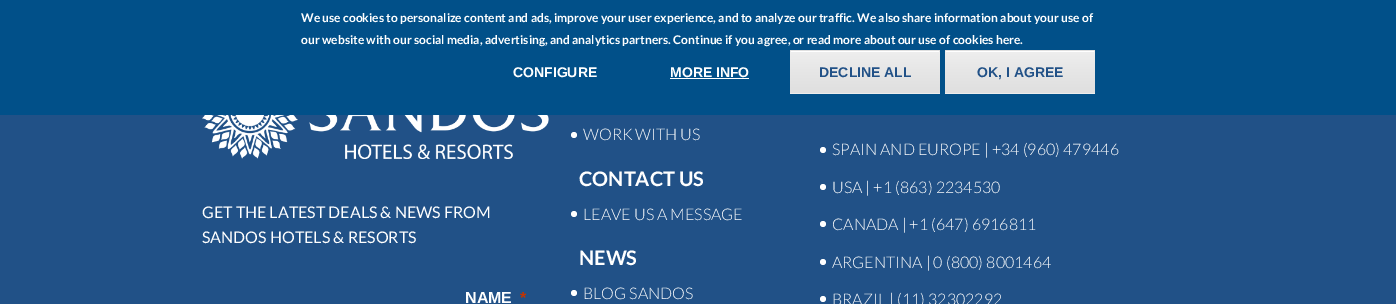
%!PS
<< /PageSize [1396 304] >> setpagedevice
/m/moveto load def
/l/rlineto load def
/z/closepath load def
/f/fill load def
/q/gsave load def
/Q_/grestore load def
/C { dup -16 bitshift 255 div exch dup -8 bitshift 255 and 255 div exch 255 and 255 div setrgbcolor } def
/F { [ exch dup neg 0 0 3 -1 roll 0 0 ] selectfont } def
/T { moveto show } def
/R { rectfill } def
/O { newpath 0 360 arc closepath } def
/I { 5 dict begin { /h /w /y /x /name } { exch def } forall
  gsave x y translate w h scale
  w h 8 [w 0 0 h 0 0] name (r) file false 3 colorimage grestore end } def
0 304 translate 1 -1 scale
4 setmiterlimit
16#215187 C
0 0 1396 304 R
16#015089 C
0 0 1396 115 R
/Lato-Bold 12 F
16#FFFFFF C
(We use cookies to personalize content and ads, improve your user experience, and to analyze our traffic. We also share information about your use of) 301 22 T
(our website with our social media, advertising, and analytics partners. Continue if you agree, or read more about our use of cookies here.) 301 44 T
/LiberationSans-Bold 14 F
(CONFIGURE) 513 77 T
(MORE INFO) 670 77 T
670 78 79 1 R
q 790 50 m 150 0 l 0 1 l -150 0 l z clip newpath
<< /ShadingType 2 /ColorSpace /DeviceRGB /Coords [865 9 865 51] /Extend [true true] /Function << /FunctionType 3 /Domain [0 1] /Functions [<< /FunctionType 2 /Domain [0 1] /C0 [.929 .929 .929] /C1 [.929 .929 .929] /N 1 >> << /FunctionType 2 /Domain [0 1] /C0 [.929 .929 .929] /C1 [.875 .875 .875] /N 1 >>] /Bounds [.05] /Encode [0 1 0 1] >> >> shfill Q_
q 790 51 m 150 0 l 0 42 l -150 0 l z clip newpath
<< /ShadingType 2 /ColorSpace /DeviceRGB /Coords [865 51 865 93] /Extend [true true] /Function << /FunctionType 3 /Domain [0 1] /Functions [<< /FunctionType 2 /Domain [0 1] /C0 [.929 .929 .929] /C1 [.929 .929 .929] /N 1 >> << /FunctionType 2 /Domain [0 1] /C0 [.929 .929 .929] /C1 [.875 .875 .875] /N 1 >>] /Bounds [.05] /Encode [0 1 0 1] >> >> shfill Q_
q 790 93 m 150 0 l 0 1 l -150 0 l z clip newpath
<< /ShadingType 2 /ColorSpace /DeviceRGB /Coords [865 93 865 135] /Extend [true true] /Function << /FunctionType 3 /Domain [0 1] /Functions [<< /FunctionType 2 /Domain [0 1] /C0 [.929 .929 .929] /C1 [.929 .929 .929] /N 1 >> << /FunctionType 2 /Domain [0 1] /C0 [.929 .929 .929] /C1 [.875 .875 .875] /N 1 >>] /Bounds [.05] /Encode [0 1 0 1] >> >> shfill Q_
791 51 148 1 R
16#215187 C
(DECLINE ALL) 819 77 T
q 945 50 m 150 0 l 0 1 l -150 0 l z clip newpath
<< /ShadingType 2 /ColorSpace /DeviceRGB /Coords [1020 9 1020 51] /Extend [true true] /Function << /FunctionType 3 /Domain [0 1] /Functions [<< /FunctionType 2 /Domain [0 1] /C0 [.929 .929 .929] /C1 [.929 .929 .929] /N 1 >> << /FunctionType 2 /Domain [0 1] /C0 [.929 .929 .929] /C1 [.875 .875 .875] /N 1 >>] /Bounds [.05] /Encode [0 1 0 1] >> >> shfill Q_
q 945 51 m 150 0 l 0 42 l -150 0 l z clip newpath
<< /ShadingType 2 /ColorSpace /DeviceRGB /Coords [1020 51 1020 93] /Extend [true true] /Function << /FunctionType 3 /Domain [0 1] /Functions [<< /FunctionType 2 /Domain [0 1] /C0 [.929 .929 .929] /C1 [.929 .929 .929] /N 1 >> << /FunctionType 2 /Domain [0 1] /C0 [.929 .929 .929] /C1 [.875 .875 .875] /N 1 >>] /Bounds [.05] /Encode [0 1 0 1] >> >> shfill Q_
q 945 93 m 150 0 l 0 1 l -150 0 l z clip newpath
<< /ShadingType 2 /ColorSpace /DeviceRGB /Coords [1020 93 1020 135] /Extend [true true] /Function << /FunctionType 3 /Domain [0 1] /Functions [<< /FunctionType 2 /Domain [0 1] /C0 [.929 .929 .929] /C1 [.929 .929 .929] /N 1 >> << /FunctionType 2 /Domain [0 1] /C0 [.929 .929 .929] /C1 [.875 .875 .875] /N 1 >>] /Bounds [.05] /Encode [0 1 0 1] >> >> shfill Q_
16#FFFFFF C
946 51 148 1 R
16#215187 C
(OK, I AGREE) 977 77 T
(1.rgb) 202 115 347 44 I
/Lato-Regular 16 F
16#FFFFFF C
(GET THE LATEST DEALS & NEWS FROM) 202 218 T
(SANDOS HOTELS & RESORTS) 202 243 T
/LiberationSans-Bold 16 F
(NAME) 465 303 T
16#C33400 C
(*) 520 303 T
16#FFFFFF C
574 135 3 O f
/Lato-Light 16 F
(WORK WITH US) 583 140 T
/Lato-Bold 20 F
(CONTACT US) 579 186 T
574 214 3 O f
/Lato-Light 16 F
(LEAVE US A MESSAGE) 583 220 T
/Lato-Bold 20 F
(NEWS) 579 265 T
574 293 3 O f
/Lato-Light 16 F
(BLOG SANDOS) 583 299 T
823 150 3 O f
(SPAIN AND EUROPE | +34 \(960\) 479446) 832 155 T
823 187 3 O f
(USA | +1 \(863\) 2234530) 832 193 T
823 224 3 O f
(CANADA | +1 \(647\) 6916811) 832 230 T
823 262 3 O f
(ARGENTINA | 0 \(800\) 8001464) 832 268 T
823 299 3 O f
(BRAZIL | \(11\) 32302292) 832 305 T
showpage
